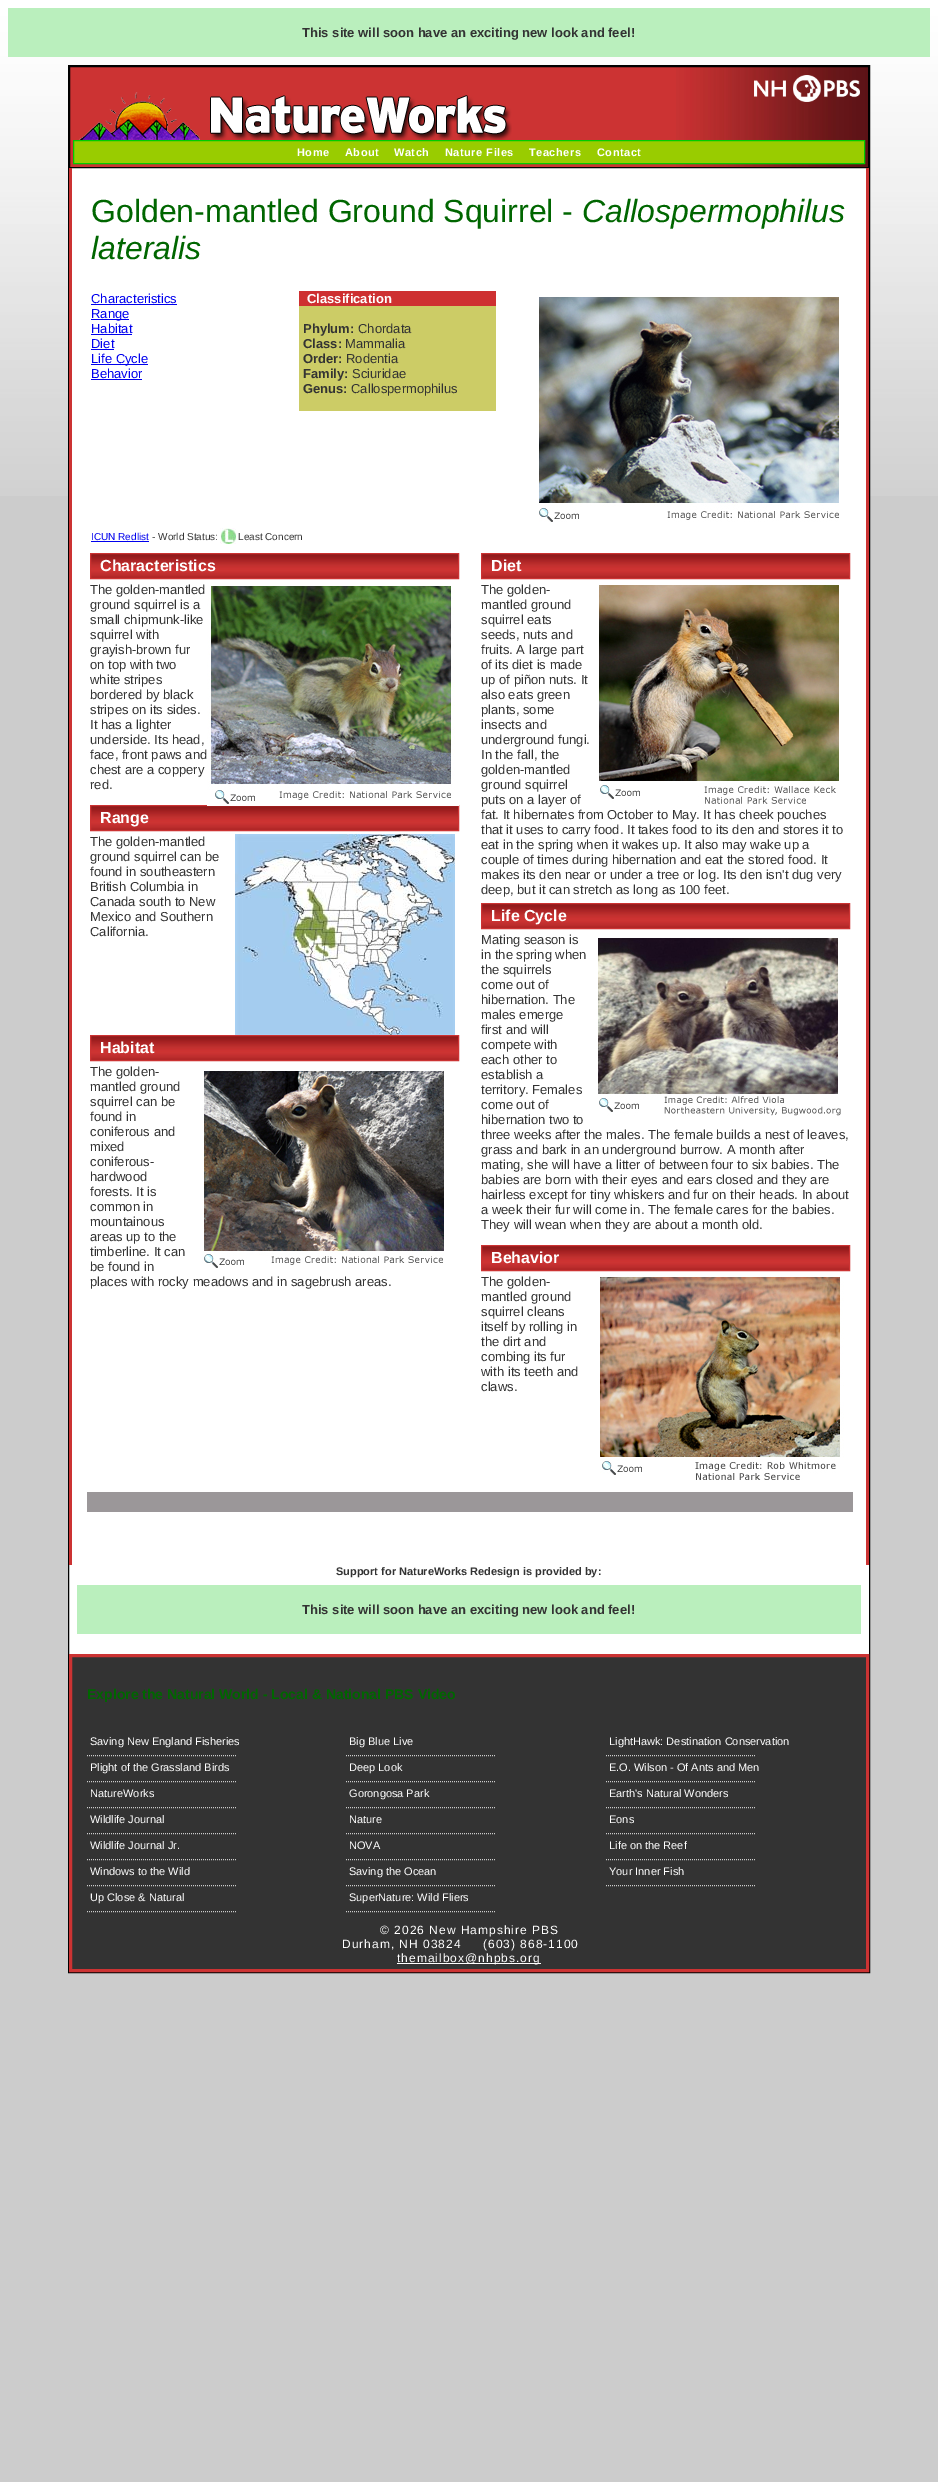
%!PS
<< /PageSize [938 2482] >> setpagedevice
/m/moveto load def
/l/rlineto load def
/z/closepath load def
/f/fill load def
/s/stroke load def
/q/gsave load def
/Q_/grestore load def
/w/setlinewidth load def
/C { dup -16 bitshift 255 div exch dup -8 bitshift 255 and 255 div exch 255 and 255 div setrgbcolor } def
/F { [ exch dup neg 0 0 3 -1 roll 0 0 ] selectfont } def
/T { moveto show } def
/R { rectfill } def
/I { 5 dict begin { /h /w /y /x /name } { exch def } forall
  gsave x y translate w h scale
  w h 8 [w 0 0 h 0 0] name (r) file false 3 colorimage grestore end } def
0 2482 translate 1 -1 scale
4 setmiterlimit
16#CCCCCC C
0 0 938 2482 R
(1.rgb) 0 0 938 496 I
16#BAEFBD C
8 8 922 49 R
/LiberationSans-Bold 13 F
16#333333 C
(This site will soon have an exciting new look and feel!) 302 37 T
16#FFFFFF C
69 168 800 1486 R
16#000000 C
68.5 65.5 801 1907 rectstroke
16#CC3333 C
70 67 606 100 R
(2.rgb) 676 67 192 100 I
16#000000 C
69.5 66.5 799 101 rectstroke
(3.rgb) 754 75 106 27 I
(4.rgb) 79 92 433 48 I
16#99CC00 C
73.5 140.5 m 791 0 l 0 23 l -791 0 l z q f Q_
16#00CC00 C
s
/LiberationSans-Bold 11 F
16#FFFFFF C
297 156 m .5 0 (Home) ashow
345 156 m .5 0 (About) ashow
394 156 m .5 0 (Watch) ashow
445 156 m .5 0 (Nature Files) ashow
529 156 m .5 0 (Teachers) ashow
597 156 m .5 0 (Contact) ashow
16#CC3333 C
866 168 3 1397 R
69 168 3 1397 R
/LiberationSans-Regular 32 F
16#006600 C
(Golden-mantled Ground Squirrel -) 91 222 T
/LiberationSans-Italic 32 F
(Callospermophilus) 582 222 T
(lateralis) 91 259 T
/LiberationSans-Regular 13 F
16#0000EE C
(Characteristics) 91 303 T
91 304 86 1 R
91 319 38 1 R
(Range) 91 318 T
(Habitat) 91 333 T
91 334 41 1 R
(Diet) 91 348 T
91 349 23 1 R
91 364 57 1 R
(Life Cycle) 91 363 T
(Behavior) 91 378 T
91 379 51 1 R
16#CE3031 C
299 291 197 15 R
/LiberationSans-Bold 13 F
16#FFFFFF C
(Classification) 307 303 T
16#CCCC66 C
299 306 197 105 R
16#333333 C
(Phylum:) 303 333 T
/LiberationSans-Regular 13 F
(Chordata) 358 333 T
/LiberationSans-Bold 13 F
(Class:) 303 348 T
/LiberationSans-Regular 13 F
(Mammalia) 345 348 T
/LiberationSans-Bold 13 F
(Order:) 303 363 T
/LiberationSans-Regular 13 F
(Rodentia) 346 363 T
/LiberationSans-Bold 13 F
(Family:) 303 378 T
/LiberationSans-Regular 13 F
(Sciuridae) 352 378 T
/LiberationSans-Bold 13 F
(Genus:) 303 393 T
/LiberationSans-Regular 13 F
(Callospermophilus) 351 393 T
(5.rgb) 539 297 300 225 I
/LiberationSans-Regular 10 F
16#0000EE C
(ICUN Redlist) 91 540 T
91 541 58 1 R
16#333333 C
(- World Status:) 152 540 T
(6.rgb) 220 528 16 16 I
(Least Concern) 238 540 T
(7.rgb) 91 554 367 24 I
16#CC3333 C
90.5 553.5 368 25 rectstroke
/LiberationSans-Bold 16 F
16#FFFFFF C
(Characteristics) 100 571 T
/LiberationSans-Regular 13 F
16#333333 C
(The golden-mantled) 90 594 T
(7.rgb) 91 806 367 24 I
16#CC3333 C
90.5 805.5 368 25 rectstroke
(8.rgb) 207 586 252 220 I
16#333333 C
(ground squirrel is a) 90 609 T
(small chipmunk-like) 90 624 T
(squirrel with) 90 639 T
(grayish-brown fur) 90 654 T
(on top with two) 90 669 T
(white stripes) 90 684 T
(bordered by black) 90 699 T
(stripes on its sides.) 90 714 T
(It has a lighter) 90 729 T
(underside. Its head,) 90 744 T
(face, front paws and) 90 759 T
(chest are a coppery) 90 774 T
(red.) 90 789 T
/LiberationSans-Bold 16 F
16#FFFFFF C
(Range) 100 823 T
/LiberationSans-Regular 13 F
16#333333 C
(The golden-mantled) 90 846 T
(9.rgb) 235 834 220 201 I
(ground squirrel can be) 90 861 T
(found in southeastern) 90 876 T
(British Columbia in) 90 891 T
(Canada south to New) 90 906 T
(Mexico and Southern) 90 921 T
(California.) 90 936 T
(7.rgb) 91 1036 367 24 I
16#CC3333 C
90.5 1035.5 368 25 rectstroke
/LiberationSans-Bold 16 F
16#FFFFFF C
(Habitat) 100 1053 T
/LiberationSans-Regular 13 F
16#333333 C
(The golden-) 90 1076 T
(10.rgb) 202 1071 242 197 I
(mantled ground) 90 1091 T
(squirrel can be) 90 1106 T
(found in) 90 1121 T
(coniferous and) 90 1136 T
(mixed) 90 1151 T
(coniferous-) 90 1166 T
(hardwood) 90 1181 T
(forests. It is) 90 1196 T
(common in) 90 1211 T
(mountainous) 90 1226 T
(areas up to the) 90 1241 T
(timberline. It can) 90 1256 T
(be found in) 90 1271 T
(places with rocky meadows and in sagebrush areas.) 90 1286 T
(7.rgb) 482 554 367 24 I
16#CC3333 C
481.5 553.5 368 25 rectstroke
/LiberationSans-Bold 16 F
16#FFFFFF C
(Diet) 491 571 T
/LiberationSans-Regular 13 F
16#333333 C
(The golden-) 481 594 T
(11.rgb) 599 585 240 219 I
(mantled ground) 481 609 T
(squirrel eats) 481 624 T
(seeds, nuts and) 481 639 T
(fruits. A large part) 481 654 T
(of its diet is made) 481 669 T
(up of piñon nuts. It) 481 684 T
(also eats green) 481 699 T
(plants, some) 481 714 T
(insects and) 481 729 T
(underground fungi.) 481 744 T
(In the fall, the) 481 759 T
(golden-mantled) 481 774 T
(ground squirrel) 481 789 T
(puts on a layer of) 481 804 T
(fat. It hibernates from October to May. It has cheek pouches) 481 819 T
(that it uses to carry food. It takes food to its den and stores it to) 481 834 T
(eat in the spring when it wakes up. It also may wake up a) 481 849 T
(couple of times during hibernation and eat the stored food. It) 481 864 T
(makes its den near or under a tree or log. Its den isn't dug very) 481 879 T
(deep, but it can stretch as long as 100 feet.) 481 894 T
(7.rgb) 482 904 367 24 I
16#CC3333 C
481.5 903.5 368 25 rectstroke
/LiberationSans-Bold 16 F
16#FFFFFF C
(Life Cycle) 491 921 T
/LiberationSans-Regular 13 F
16#333333 C
(Mating season is) 481 944 T
(12.rgb) 598 938 243 178 I
(in the spring when) 481 959 T
(the squirrels) 481 974 T
(come out of) 481 989 T
(hibernation. The) 481 1004 T
(males emerge) 481 1019 T
(first and will) 481 1034 T
(compete with) 481 1049 T
(each other to) 481 1064 T
(establish a) 481 1079 T
(territory. Females) 481 1094 T
(come out of) 481 1109 T
(hibernation two to) 481 1124 T
(three weeks after the males. The female builds a nest of leaves,) 481 1139 T
(grass and bark in an underground burrow. A month after) 481 1154 T
(mating, she will have a litter of between four to six babies. The) 481 1169 T
(babies are born with their eyes and ears closed and they are) 481 1184 T
(hairless except for tiny whiskers and fur on their heads. In about) 481 1199 T
(a week their fur will come in. The female cares for the babies.) 481 1214 T
(They will wean when they are about a month old.) 481 1229 T
(7.rgb) 482 1246 367 24 I
16#CC3333 C
481.5 1245.5 368 25 rectstroke
/LiberationSans-Bold 16 F
16#FFFFFF C
(Behavior) 491 1263 T
/LiberationSans-Regular 13 F
16#333333 C
(The golden-) 481 1286 T
(13.rgb) 600 1275 244 205 I
(mantled ground) 481 1301 T
(squirrel cleans) 481 1316 T
(itself by rolling in) 481 1331 T
(the dirt and) 481 1346 T
(combing its fur) 481 1361 T
(with its teeth and) 481 1376 T
(claws.) 481 1391 T
16#9B9799 C
87 1492 766 20 R
/LiberationSans-Bold 11 F
16#333333 C
(Support for NatureWorks Redesign is provided by:) 336 1575 T
16#BAEFBD C
77 1585 784 49 R
/LiberationSans-Bold 13 F
16#333333 C
(This site will soon have an exciting new look and feel!) 302 1614 T
70.5 1655.5 m 797 0 l 0 315 l -797 0 l z q f Q_
16#CC3333 C
3 w
s
/LiberationSans-Bold 14 F
16#006600 C
(Explore the Natural World - Local & National PBS Video) 87 1699 T
16#CCCCCC C
1 w
[1 1] 0 setdash
87 1755.5 m 150 0 l s
/LiberationSans-Regular 11 F
16#FFFFFF C
(Saving New England Fisheries) 90 1745 T
16#CCCCCC C
87 1781.5 m 150 0 l s
16#FFFFFF C
(Plight of the Grassland Birds) 90 1771 T
16#CCCCCC C
87 1807.5 m 150 0 l s
16#FFFFFF C
(NatureWorks) 90 1797 T
16#CCCCCC C
87 1833.5 m 150 0 l s
16#FFFFFF C
(Wildlife Journal) 90 1823 T
16#CCCCCC C
87 1859.5 m 150 0 l s
16#FFFFFF C
(Wildlife Journal Jr.) 90 1849 T
16#CCCCCC C
87 1885.5 m 150 0 l s
16#FFFFFF C
(Windows to the Wild) 90 1875 T
16#CCCCCC C
87 1911.5 m 150 0 l s
16#FFFFFF C
(Up Close & Natural) 90 1901 T
16#CCCCCC C
346 1755.5 m 150 0 l s
16#FFFFFF C
(Big Blue Live) 349 1745 T
16#CCCCCC C
346 1781.5 m 150 0 l s
16#FFFFFF C
(Deep Look) 349 1771 T
16#CCCCCC C
346 1807.5 m 150 0 l s
16#FFFFFF C
(Gorongosa Park) 349 1797 T
16#CCCCCC C
346 1833.5 m 150 0 l s
16#FFFFFF C
(Nature) 349 1823 T
16#CCCCCC C
346 1859.5 m 150 0 l s
16#FFFFFF C
(NOVA) 349 1849 T
16#CCCCCC C
346 1885.5 m 150 0 l s
16#FFFFFF C
(Saving the Ocean) 349 1875 T
16#CCCCCC C
346 1911.5 m 150 0 l s
16#FFFFFF C
(SuperNature: Wild Fliers) 349 1901 T
16#CCCCCC C
606 1755.5 m 150 0 l s
16#FFFFFF C
(LightHawk: Destination Conservation) 609 1745 T
16#CCCCCC C
606 1781.5 m 150 0 l s
16#FFFFFF C
(E.O. Wilson - Of Ants and Men) 609 1771 T
16#CCCCCC C
606 1807.5 m 150 0 l s
16#FFFFFF C
(Earth's Natural Wonders) 609 1797 T
16#CCCCCC C
606 1833.5 m 150 0 l s
16#FFFFFF C
(Eons) 609 1823 T
16#CCCCCC C
606 1859.5 m 150 0 l s
16#FFFFFF C
(Life on the Reef) 609 1849 T
16#CCCCCC C
606 1885.5 m 150 0 l s
16#FFFFFF C
(Your Inner Fish) 609 1875 T
/LiberationSans-Regular 12 F
380 1934 m 1 0 (© 2026 New Hampshire PBS) ashow
342 1948 m 1 0 (Durham, NH 03824) ashow
483 1948 m 1 0 (\(603\) 868-1100) ashow
397 1963 144 1 R
397 1962 m 1 0 (themailbox@nhpbs.org) ashow
showpage
